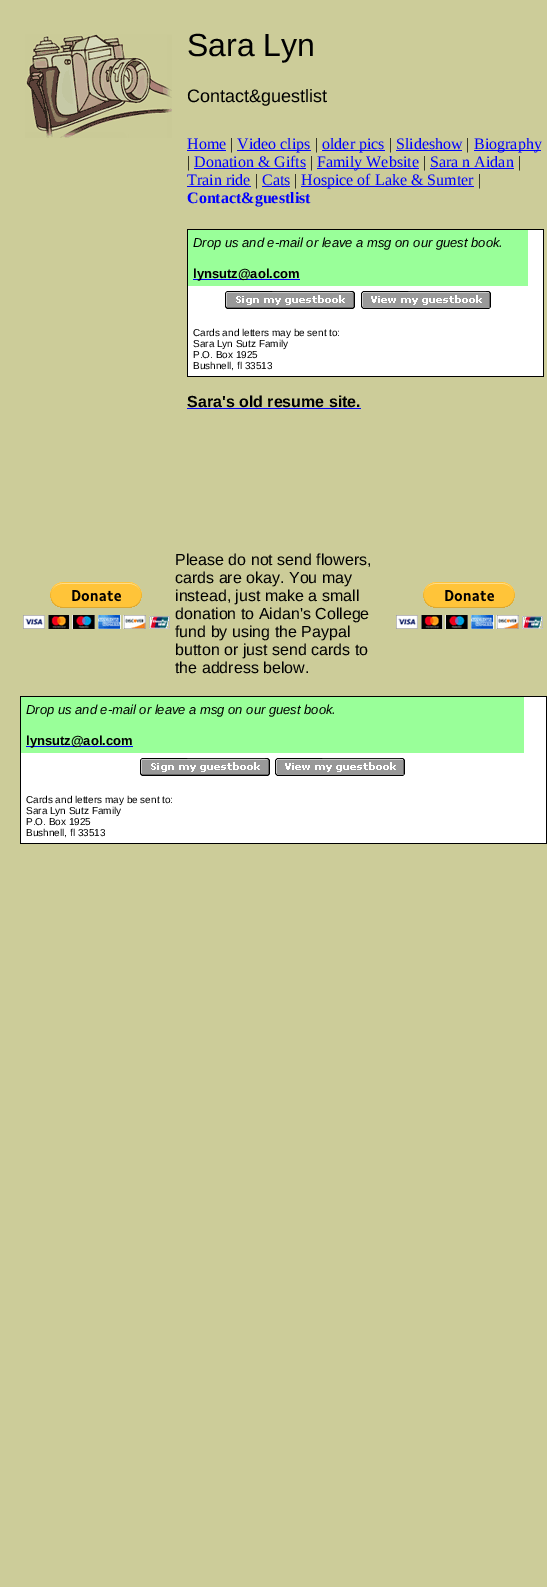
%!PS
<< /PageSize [547 1587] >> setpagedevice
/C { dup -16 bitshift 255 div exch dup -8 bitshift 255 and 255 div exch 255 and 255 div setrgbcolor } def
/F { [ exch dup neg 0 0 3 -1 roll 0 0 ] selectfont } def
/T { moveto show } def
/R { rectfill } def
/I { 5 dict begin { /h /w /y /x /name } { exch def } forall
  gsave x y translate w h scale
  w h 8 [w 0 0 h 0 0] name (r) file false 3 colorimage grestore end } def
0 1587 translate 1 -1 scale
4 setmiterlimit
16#CCCC99 C
0 0 547 1587 R
(1.rgb) 25 34 147 104 I
/LiberationSans-Regular 32 F
16#000000 C
(Sara Lyn) 187 56 T
/LiberationSans-Regular 18 F
(Contact&guestlist) 187 102 T
/LiberationSerif-Regular 16 F
16#0000FF C
(Home) 187 149 T
187 150 39 1 R
16#000000 C
(|) 230 149 T
16#0000FF C
237 150 74 1 R
(Video clips) 237 149 T
16#000000 C
(|) 315 149 T
16#0000FF C
322 150 63 1 R
(older pics) 322 149 T
16#000000 C
(|) 389 149 T
16#0000FF C
(Slideshow) 396 149 T
396 150 66 1 R
16#000000 C
(|) 466 149 T
16#0000FF C
474 150 67 1 R
(Biography) 474 149 T
16#000000 C
(|) 187 167 T
16#0000FF C
(Donation & Gifts) 194 167 T
194 168 112 1 R
16#000000 C
(|) 310 167 T
16#0000FF C
317 168 102 1 R
(Family Website) 317 167 T
16#000000 C
(|) 423 167 T
16#0000FF C
(Sara n Aidan) 430 167 T
430 168 84 1 R
16#000000 C
(|) 518 167 T
16#0000FF C
(Train ride) 187 185 T
187 186 64 1 R
16#000000 C
(|) 255 185 T
16#0000FF C
(Cats) 262 185 T
262 186 28 1 R
16#000000 C
(|) 294 185 T
16#0000FF C
301 186 173 1 R
(Hospice of Lake & Sumter) 301 185 T
16#000000 C
(|) 478 185 T
/LiberationSerif-Bold 16 F
16#0000FF C
(Contact&guestlist) 187 203 T
16#000000 C
187 229 357 1 R
187 230 1 146 R
16#99FF99 C
188 230 340 56 R
/LiberationSans-Italic 13 F
16#000000 C
(Drop us and e-mail or leave a msg on our guest book.) 193 247 T
16#0000FF C
193 279 107 1 R
/LiberationSans-Bold 13 F
16#000000 C
(lynsutz@aol.com) 193 278 T
16#FFFFFF C
528 230 15 146 R
188 286 340 90 R
(2.rgb) 225 291 130 18 I
(3.rgb) 361 291 130 18 I
/LiberationSans-Regular 10 F
16#000000 C
(Cards and letters may be sent to:) 193 336 T
(Sara Lyn Sutz Family) 193 347 T
(P.O. Box 1925) 193 358 T
(Bushnell, fl 33513) 193 369 T
543 230 1 146 R
187 376 357 1 R
/LiberationSans-Bold 16 F
(Sara's old resume site.) 187 407 T
16#0000FF C
187 408 174 1 R
(4.rgb) 23 582 147 47 I
/LiberationSans-Regular 16 F
16#000000 C
(Please do not send flowers,) 175 565 T
(cards are okay. You may) 175 583 T
(instead, just make a small) 175 601 T
(donation to Aidan's College) 175 619 T
(fund by using the Paypal) 175 637 T
(button or just send cards to) 175 655 T
(the address below.) 175 673 T
(4.rgb) 396 582 147 47 I
20 696 527 1 R
20 697 1 146 R
16#99FF99 C
21 697 503 56 R
/LiberationSans-Italic 13 F
16#000000 C
(Drop us and e-mail or leave a msg on our guest book.) 26 714 T
16#0000FF C
26 746 107 1 R
/LiberationSans-Bold 13 F
16#000000 C
(lynsutz@aol.com) 26 745 T
16#FFFFFF C
524 697 22 146 R
21 753 503 90 R
(2.rgb) 140 758 130 18 I
(3.rgb) 275 758 130 18 I
/LiberationSans-Regular 10 F
16#000000 C
(Cards and letters may be sent to:) 26 803 T
(Sara Lyn Sutz Family) 26 814 T
(P.O. Box 1925) 26 825 T
(Bushnell, fl 33513) 26 836 T
546 697 1 146 R
20 843 527 1 R
showpage
